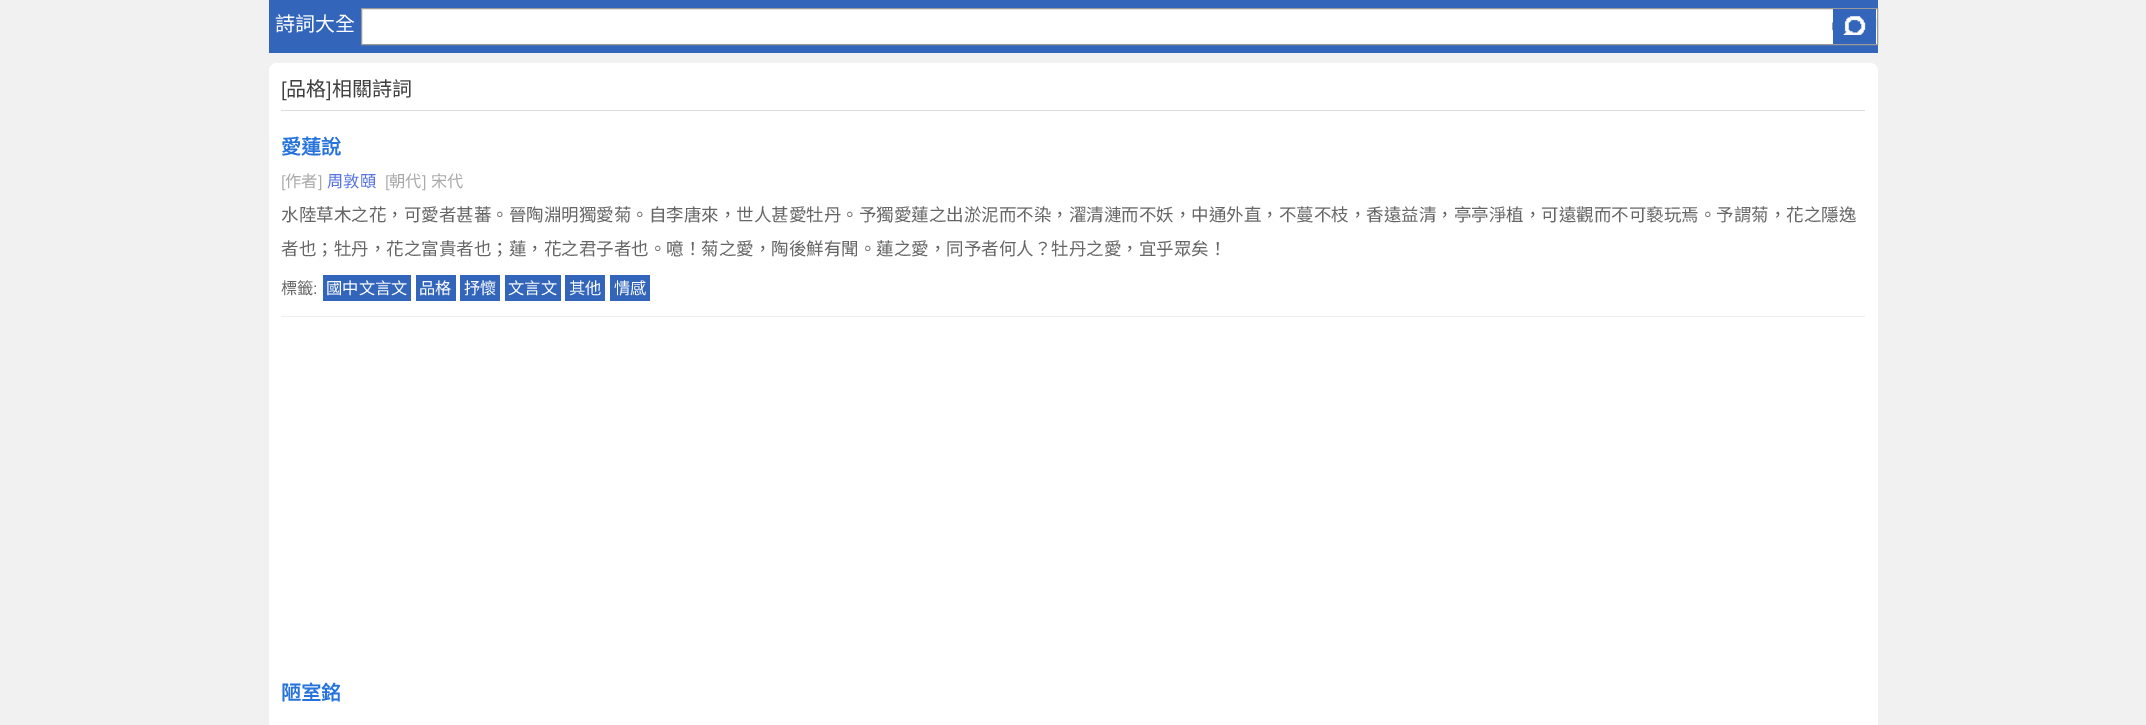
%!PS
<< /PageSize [2146 725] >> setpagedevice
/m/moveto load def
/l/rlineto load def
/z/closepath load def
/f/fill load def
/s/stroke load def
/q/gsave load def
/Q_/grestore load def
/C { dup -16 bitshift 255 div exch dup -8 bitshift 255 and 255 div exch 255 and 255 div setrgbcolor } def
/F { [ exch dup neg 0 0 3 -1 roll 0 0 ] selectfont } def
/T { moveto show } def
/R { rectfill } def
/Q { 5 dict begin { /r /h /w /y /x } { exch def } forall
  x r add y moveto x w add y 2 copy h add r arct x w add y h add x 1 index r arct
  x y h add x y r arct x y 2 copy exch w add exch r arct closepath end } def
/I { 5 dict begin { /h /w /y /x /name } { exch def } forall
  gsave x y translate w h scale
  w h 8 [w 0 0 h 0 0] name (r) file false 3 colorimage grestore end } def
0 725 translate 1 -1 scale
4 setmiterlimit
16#F1F1F1 C
0 0 2146 725 R
16#3366BB C
269 0 1609 53 R
/NotoSansCJKTC-Regular 20 F
16#FFFFFF C
(詩詞大全) 275 31 T
361.5 8.5 m 1516 0 l 0 36 l -1516 0 l z q f Q_
16#999999 C
s
16#3366BB C
1840 16 28 19 R
(1.rgb) 1832 16 45 19 I
1833 9 43 7 R
1868 9 8 26 R
1840 35 36 9 R
1833 9 7 35 R
16#FFFFFF C
269 63 1609 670 8 Q f
16#DDDDDD C
281 110 1584 1 R
/LiberationSans-Regular 20 F
16#404040 C
([) 281 96 T
/NotoSansCJKTC-Regular 20 F
(品格) 286 96 T
/LiberationSans-Regular 20 F
(]) 326 96 T
/NotoSansCJKTC-Regular 20 F
(相關詩詞) 332 96 T
16#EEEEEE C
281 316 1584 1 R
/NotoSansCJKTC-Bold 20 F
16#2673DB C
(愛蓮說) 281 154 T
/LiberationSans-Regular 16.25 F
16#AAAAAA C
([) 281 187 T
/NotoSansCJKTC-Regular 16.25 F
(作者) 285 187 T
/LiberationSans-Regular 16.25 F
(]) 318 187 T
/NotoSansCJKTC-Regular 16.25 F
16#5573E1 C
(周敦頤) 327 187 T
/LiberationSans-Regular 16.25 F
16#AAAAAA C
([) 385 187 T
/NotoSansCJKTC-Regular 16.25 F
(朝代) 389 187 T
/LiberationSans-Regular 16.25 F
(]) 422 187 T
/NotoSansCJKTC-Regular 16.25 F
(宋代) 431 187 T
/NotoSansCJKTC-Regular 17.5 F
16#666666 C
(水陸草木之花，可愛者甚蕃。晉陶淵明獨愛菊。自李唐來，世人甚愛牡丹。予獨愛蓮之出淤泥而不染，濯清漣而不妖，中通外直，不蔓不枝，香遠益清，亭亭淨植，可遠觀而不可褻玩焉。予謂菊，花之隱逸) 281 221 T
(者也；牡丹，花之富貴者也；蓮，花之君子者也。噫！菊之愛，陶後鮮有聞。蓮之愛，同予者何人？牡丹之愛，宜乎眾矣！) 281 255 T
/NotoSansCJKTC-Regular 16.25 F
(標籤) 281 294 T
/LiberationSans-Regular 16.25 F
(:) 313 294 T
16#3366BB C
323 275 88 26 R
/NotoSansCJKTC-Regular 16.25 F
16#FFFFFF C
(國中文言文) 326 294 T
16#3366BB C
416 275 40 26 R
16#FFFFFF C
(品格) 419 294 T
16#3366BB C
460 275 40 26 R
16#FFFFFF C
(抒懷) 464 294 T
16#3366BB C
505 275 56 26 R
16#FFFFFF C
(文言文) 508 294 T
16#3366BB C
565 275 40 26 R
16#FFFFFF C
(其他) 569 294 T
16#3366BB C
610 275 40 26 R
16#FFFFFF C
(情感) 614 294 T
/NotoSansCJKTC-Bold 20 F
16#2673DB C
(陋室銘) 281 700 T
showpage
